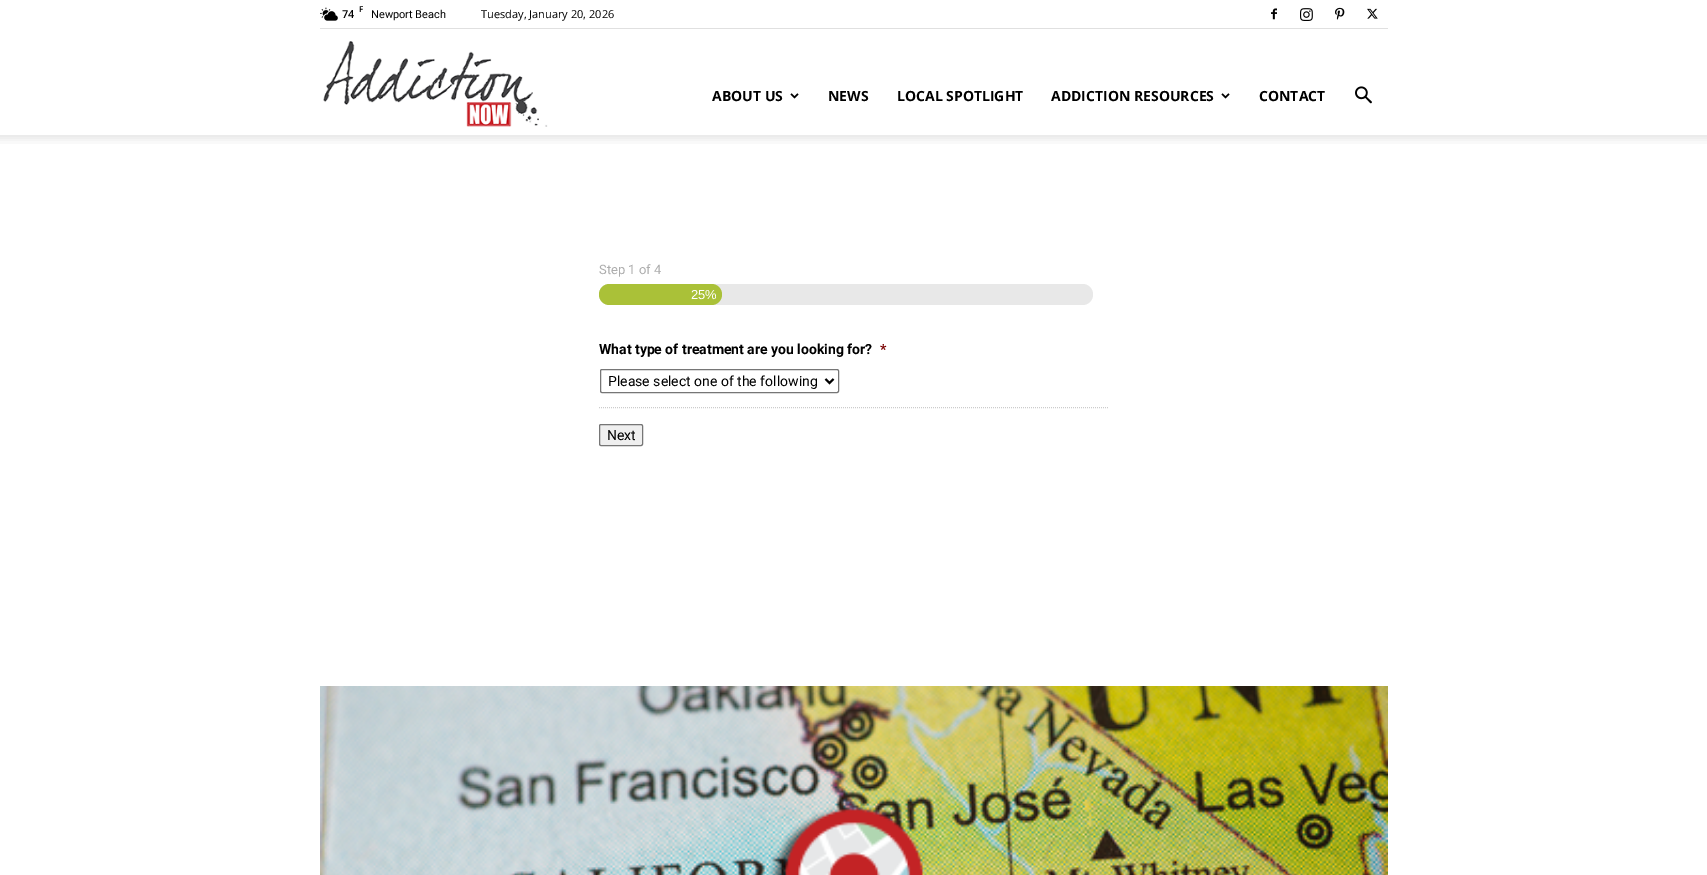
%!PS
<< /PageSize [1707 875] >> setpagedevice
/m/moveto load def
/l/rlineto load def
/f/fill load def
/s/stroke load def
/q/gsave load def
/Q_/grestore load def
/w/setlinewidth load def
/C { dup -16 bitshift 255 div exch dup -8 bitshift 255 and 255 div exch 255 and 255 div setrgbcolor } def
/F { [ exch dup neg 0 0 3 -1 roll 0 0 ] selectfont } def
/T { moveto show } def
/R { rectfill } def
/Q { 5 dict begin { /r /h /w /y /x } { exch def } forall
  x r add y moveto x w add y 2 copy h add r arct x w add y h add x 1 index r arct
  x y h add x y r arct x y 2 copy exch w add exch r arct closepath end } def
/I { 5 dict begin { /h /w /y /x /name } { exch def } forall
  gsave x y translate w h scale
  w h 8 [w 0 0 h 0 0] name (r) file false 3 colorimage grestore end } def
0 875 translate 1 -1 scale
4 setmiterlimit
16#FFFFFF C
0 0 1707 875 R
16#E0E0E0 C
320 28 1068 1 R
(1.rgb) 320 7 18 14 I
/OpenSans-SemiBold 8 F
16#000000 C
(F) 359 12 T
/OpenSans-SemiBold 11 F
(74) 342 18 T
/Roboto-Regular 11 F
(Newport Beach) 371 18 T
/OpenSans-Regular 11 F
(Tuesday, January 20, 2026) 481 18 T
(2.rgb) 1271 8 6 12 I
(3.rgb) 1300 8 13 13 I
(4.rgb) 1335 7 10 13 I
(5.rgb) 1367 8 11 11 I
(6.rgb) 323 41 225 86 I
/OpenSans-Bold 14 F
(ABOUT US) 712 101 T
(7.rgb) 790 93 9 6 I
(NEWS) 828 101 T
(LOCAL SPOTLIGHT) 897 101 T
(ADDICTION RESOURCES) 1051 101 T
(7.rgb) 1221 93 9 6 I
(CONTACT) 1259 101 T
(8.rgb) 1355 86 17 18 I
(9.rgb) 0 135 1707 9 I
/Roboto-Regular 13 F
16#ADADAD C
(Step 1 of 4) 599 274 T
16#E8E8E8 C
599 284 494 21 10.5 Q f
16#AAC138 C
599 284 123 21 10.5 Q f
/LiberationSans-Regular 13 F
16#FFFFFF C
(25%) 691 299 T
/Roboto-Bold 14 F
16#000000 C
(What type of treatment are you looking for?) 599 354 T
16#790000 C
(*) 880 354 T
16#767676 C
600.5 369.5 238 23 1.5 Q s
16#000000 C
2 w
825.5 379 m 4 4 l 4 -4 l s
/Roboto-Regular 14 F
(Please select one of the following) 608 386 T
16#CCCCCC C
1 w
[1 1] 0 setdash
599 407.5 m 510 0 l s
16#EFEFEF C
599.5 424.5 43 21 1.5 Q q f Q_
16#767676 C
[] 0 setdash
s
16#000000 C
(Next) 607 440 T
(10.rgb) 320 686 1068 189 I
showpage
